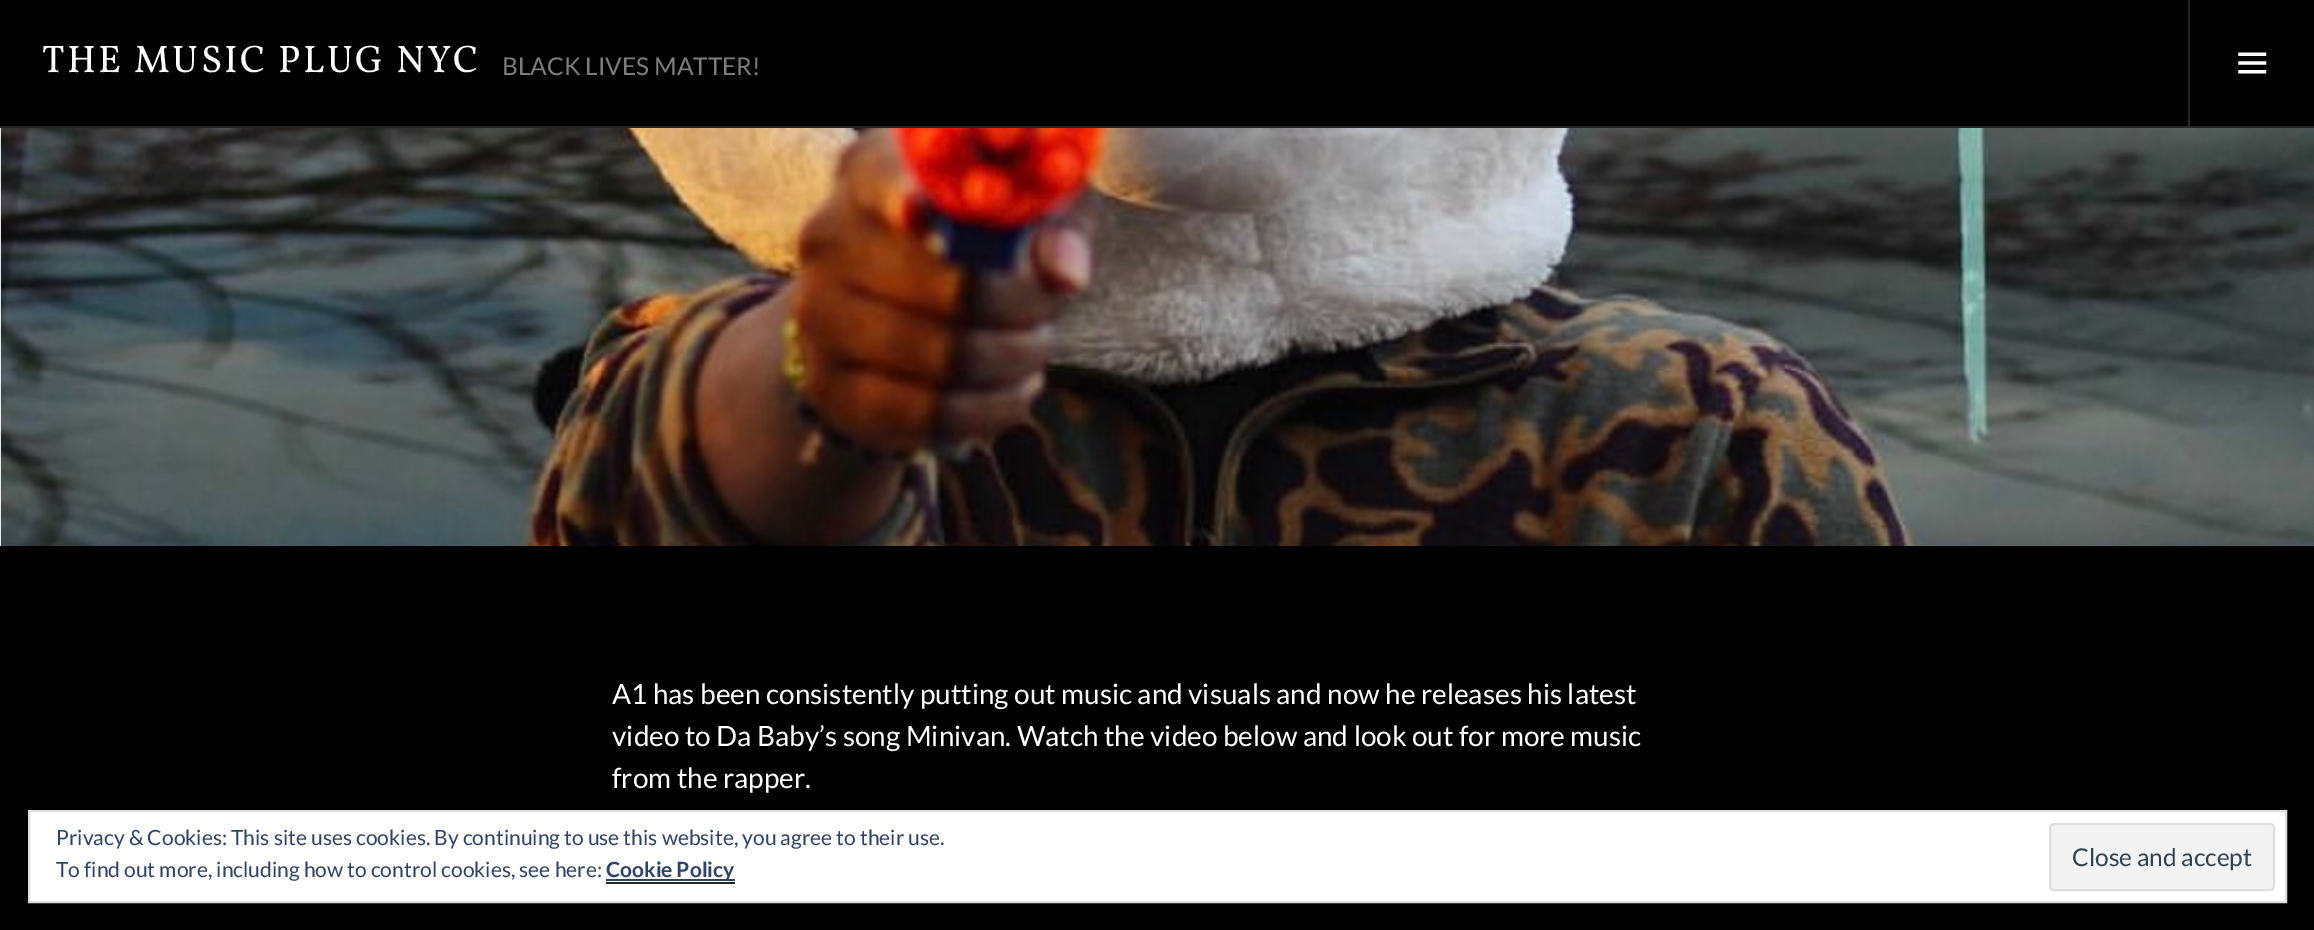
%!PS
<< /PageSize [2314 930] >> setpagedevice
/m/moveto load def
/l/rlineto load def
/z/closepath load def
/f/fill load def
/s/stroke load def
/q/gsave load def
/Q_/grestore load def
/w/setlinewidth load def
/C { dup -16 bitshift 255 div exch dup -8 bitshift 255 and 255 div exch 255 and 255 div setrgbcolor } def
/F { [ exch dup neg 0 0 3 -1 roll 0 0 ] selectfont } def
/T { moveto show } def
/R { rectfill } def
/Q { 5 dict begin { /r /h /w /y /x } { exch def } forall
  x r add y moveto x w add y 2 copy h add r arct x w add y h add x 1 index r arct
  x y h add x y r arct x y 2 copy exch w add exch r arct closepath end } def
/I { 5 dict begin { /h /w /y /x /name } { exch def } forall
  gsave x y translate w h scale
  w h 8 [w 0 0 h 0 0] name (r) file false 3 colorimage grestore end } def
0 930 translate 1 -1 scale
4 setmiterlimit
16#000000 C
0 0 2314 930 R
16#262626 C
0 126 2314 2 R
/Vollkorn-Regular 38.5 F
16#FFFFFF C
42 72 m 2.4 0 (THE MUSIC PLUG NYC) ashow
/Lato-Regular 24.5 F
16#7C7C7C C
(BLACK LIVES MATTER!) 502 75 T
16#262626 C
2188 0 2 126 R
(1.rgb) 2238 52 29 22 I
16#FFFFFF C
0 128 1 418 R
(2.rgb) 0 128 2314 418 I
/Lato-Regular 28 F
(A1 has been consistently putting out music and visuals and now he releases his latest) 612 704 T
(video to Da Baby’s song Minivan. Watch the video below and look out for more music) 612 746 T
(from the rapper.) 612 788 T
29 811 m 2257 0 l 0 91 l -2257 0 l z q f Q_
16#DEDEDE C
2 w
s
/Lato-Regular 21 F
16#2E4467 C
(Privacy & Cookies: This site uses cookies. By continuing to use this website, you agree to their use.) 56 845 T
(To find out more, including how to control cookies, see here:) 56 877 T
606 879 129 2 R
/Lato-Bold 21 F
(Cookie Policy) 606 877 T
16#262626 C
606 882 129 2 R
16#F3F3F3 C
2050 824 224 66 4 Q q f Q_
16#DEDEDE C
s
/Lato-Regular 24.5 F
16#2E4453 C
(Close and accept) 2072 866 T
showpage
